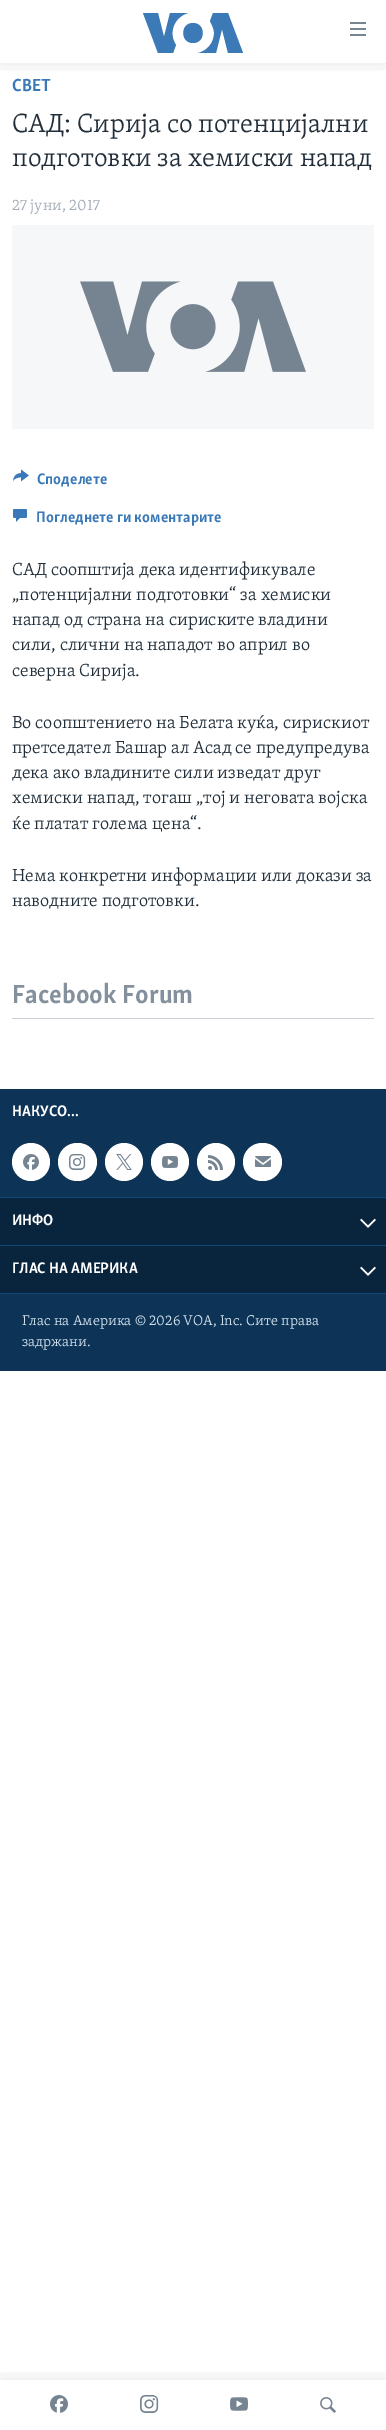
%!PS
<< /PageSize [386 2430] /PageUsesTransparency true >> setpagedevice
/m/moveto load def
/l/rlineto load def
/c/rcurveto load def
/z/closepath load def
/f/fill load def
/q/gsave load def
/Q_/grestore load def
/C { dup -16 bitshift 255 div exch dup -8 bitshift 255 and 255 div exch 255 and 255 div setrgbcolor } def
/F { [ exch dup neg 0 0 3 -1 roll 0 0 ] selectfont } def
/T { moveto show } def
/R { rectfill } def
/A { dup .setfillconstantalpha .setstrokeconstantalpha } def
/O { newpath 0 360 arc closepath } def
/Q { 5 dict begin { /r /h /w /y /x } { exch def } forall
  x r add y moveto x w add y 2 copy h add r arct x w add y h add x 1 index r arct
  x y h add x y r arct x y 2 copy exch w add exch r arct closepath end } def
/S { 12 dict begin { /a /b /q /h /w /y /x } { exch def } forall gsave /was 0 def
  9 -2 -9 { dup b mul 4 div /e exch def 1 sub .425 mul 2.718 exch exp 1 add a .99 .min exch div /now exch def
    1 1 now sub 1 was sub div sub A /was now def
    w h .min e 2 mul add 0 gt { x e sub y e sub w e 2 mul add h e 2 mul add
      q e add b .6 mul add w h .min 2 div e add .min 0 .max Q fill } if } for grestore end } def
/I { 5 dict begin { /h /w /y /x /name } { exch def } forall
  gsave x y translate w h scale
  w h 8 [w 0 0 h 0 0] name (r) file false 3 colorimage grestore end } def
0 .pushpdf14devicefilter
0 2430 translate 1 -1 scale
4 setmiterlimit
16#FFFFFF C
0 0 386 2430 R
q
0 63 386 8 rectclip
16#000000 C
0 0 386 63 0 10 .1 S
Q_
16#3B79B7 C
176 45 m -3 8 l -15 0 l -15 -40 l 15 0 l 6 24 l 6 -24 l 18 0 l -14 4 -20 20 -12 32 c z 193 23 m -13 0 -13 20 0 20 c 13 0 13 -20 0 -20 c z 214 33 m 0 10 -7 18 -16 20 c 18 0 l 6 -24 l 6 24 l 15 0 l -15 -40 l -15 0 l -3 8 l 2 4 4 8 4 12 c z f
(1.rgb) 350 22 16 14 I
q
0 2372 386 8 rectclip
16#000000 C
0 2380 386 50 0 10 .1 S
Q_
(2.rgb) 50 2395 18 18 I
(3.rgb) 140 2395 19 18 I
(4.rgb) 230 2397 18 14 I
(5.rgb) 320 2397 16 16 I
/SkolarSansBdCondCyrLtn-Bold 18 F
16#3A79B7 C
(СВЕТ) 12 91 T
/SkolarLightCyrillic-Light 27 F
16#222F3A C
(САД: Сирија со потенцијални) 12 132 T
(подготовки за хемиски напад) 12 166 T
/SkolarLightCyrillic-Light 15.75 F
16#A1AAB4 C
(27 јуни, 2017) 12 210 T
16#F6F7F8 C
12 225 362 204 R
(6.rgb) 80 281 226 91 I
(7.rgb) 13 469 16 13 I
/SkolarSansBdCondCyrLtn-Bold 15.75 F
16#3A79B7 C
(Споделете) 37 484 T
(8.rgb) 13 509 14 13 I
(Погледнете ги коментарите) 36 522 T
/SkolarLightCyrillic-Light 18 F
16#222F3A C
(САД соопштија дека идентификувале) 12 575 T
(„потенцијални подготовки“ за хемиски) 12 600 T
(напад од страна на сириските владини) 12 625 T
(сили, слични на нападот во април во) 12 650 T
(северна Сирија.) 12 676 T
(Во соопштението на Белата куќа, сирискиот) 12 728 T
(претседател Башар ал Асад се предупредува) 12 753 T
(дека ако владините сили изведат друг) 12 778 T
(хемиски напад, тогаш „тој и неговата војска) 12 803 T
(ќе платат голема цена“.) 12 829 T
(Нема конкретни информации или докази за) 12 881 T
(наводните подготовки.) 12 906 T
16#CBD1D6 C
12 1018 362 1 R
/SkolarSansBdCondCyrLtn-Bold 27 F
16#84919D C
(Facebook Forum) 12 1003 T
16#0D3456 C
0 1089 386 282 R
16#134976 C
0 1293 386 1 R
/SkolarSansBdCondCyrLtn-Bold 15.75 F
16#FFFFFF C
(НАКУСО...) 12 1116 T
31 1162 19 O f
(9.rgb) 23 1154 16 16 I
58 1143 39 38 19 Q f
(10.rgb) 69 1154 17 16 I
124 1162 19 O f
(11.rgb) 116 1154 16 16 I
170 1162 19 O f
(12.rgb) 162 1156 16 12 I
216 1162 19 O f
(13.rgb) 208 1155 15 15 I
243 1143 39 38 19 Q f
(14.rgb) 255 1156 16 11 I
16#134976 C
0 1197 386 1 R
16#09243D C
0 1198 386 47 R
16#FFFFFF C
(ИНФО) 12 1225 T
(15.rgb) 360 1218 16 10 I
16#134976 C
0 1245 386 1 R
16#09243D C
0 1246 386 47 R
16#FFFFFF C
(ГЛАС НА АМЕРИКА) 12 1273 T
(15.rgb) 360 1266 16 10 I
/SkolarLightCyrillic-Light 14.6 F
16#D1E1EE C
(Глас на Америка © 2026 VOA, Inc. Сите права) 22 1325 T
(задржани.) 22 1346 T
.poppdf14devicefilter showpage
